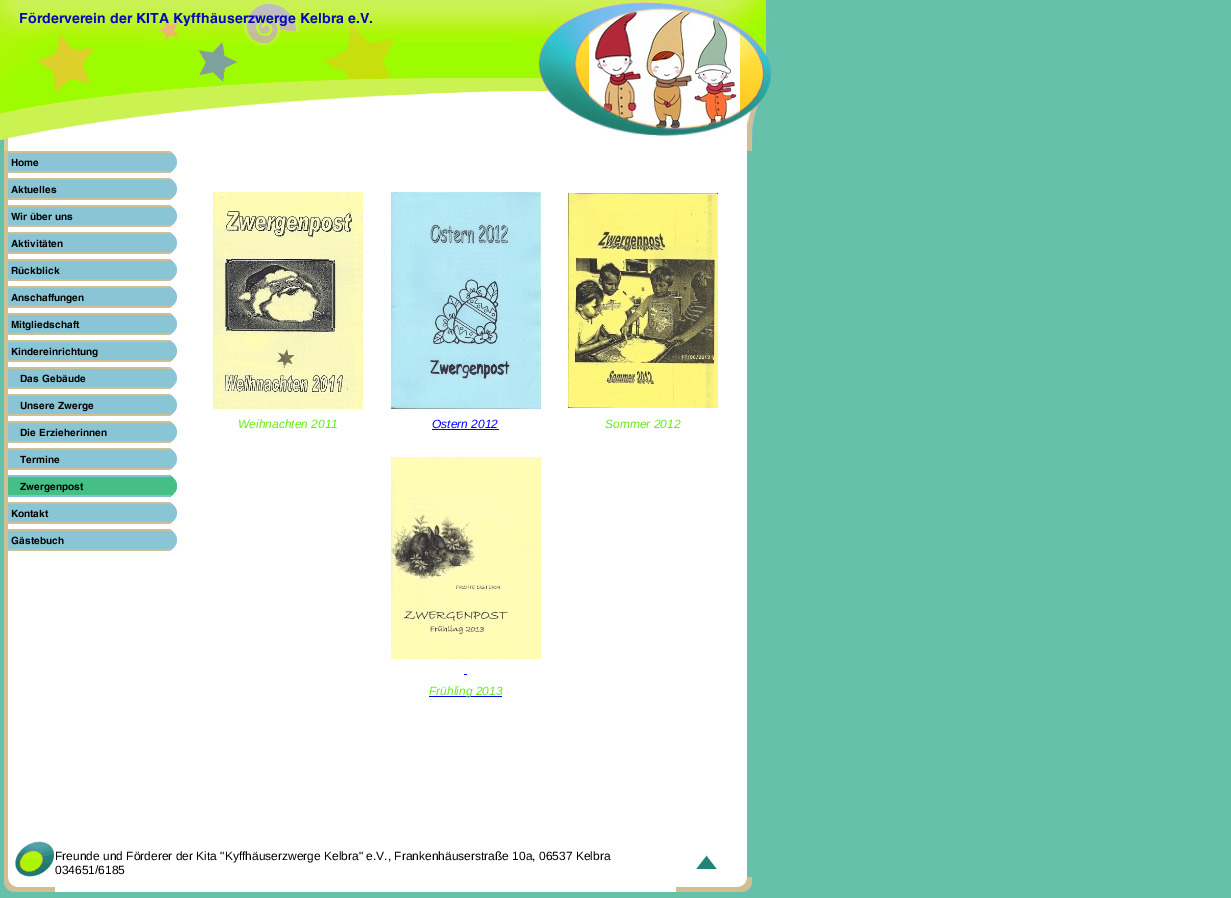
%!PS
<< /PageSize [1231 898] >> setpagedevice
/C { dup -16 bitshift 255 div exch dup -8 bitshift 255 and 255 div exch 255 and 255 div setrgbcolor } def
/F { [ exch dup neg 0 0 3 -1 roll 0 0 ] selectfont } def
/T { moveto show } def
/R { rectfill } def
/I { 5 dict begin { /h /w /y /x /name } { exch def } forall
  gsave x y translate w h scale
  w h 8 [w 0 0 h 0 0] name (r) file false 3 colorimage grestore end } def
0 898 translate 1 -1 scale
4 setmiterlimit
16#66C1AA C
0 0 1231 898 R
(1.rgb) 143 32 395 119 I
(2.rgb) 0 0 538 32 I
(3.rgb) 538 0 233 151 I
(4.rgb) 0 32 143 119 I
(5.rgb) 143 32 371 85 I
16#FFFFFF C
8 151 739 690 R
(6.rgb) 0 151 8 690 I
(7.rgb) 8 151 169 22 I
(8.rgb) 8 178 169 22 I
(9.rgb) 8 205 169 22 I
(10.rgb) 8 232 169 22 I
(11.rgb) 8 259 169 22 I
(12.rgb) 8 286 169 22 I
(13.rgb) 8 313 169 22 I
(14.rgb) 8 340 169 22 I
(15.rgb) 8 367 169 22 I
(16.rgb) 8 394 169 22 I
(17.rgb) 8 421 169 22 I
(18.rgb) 8 448 169 22 I
(19.rgb) 8 475 169 22 I
(20.rgb) 8 502 169 22 I
(21.rgb) 8 529 169 22 I
(22.rgb) 213 192 150 217 I
(23.rgb) 391 192 150 217 I
(24.rgb) 568 193 150 215 I
/LiberationSans-Italic 12 F
16#66EB14 C
(Weihnachten 2011) 238 428 T
16#0000FF C
(Ostern 2012) 432 428 T
432 429 67 1 R
16#66EB14 C
(Sommer 2012) 605 428 T
(25.rgb) 391 457 150 202 I
16#0000FF C
464 674 3 1 R
429 696 73 1 R
16#66EB14 C
(Frühling 2013) 429 695 T
(26.rgb) 747 877 5 14 I
(27.rgb) 4 841 11 36 I
(28.rgb) 15 841 40 36 I
16#FFFFFF C
55 841 692 36 R
/LiberationSans-Regular 12 F
16#000000 C
(Freunde und Förderer der Kita "Kyffhäuserzwerge Kelbra" e.V., Frankenhäuserstraße 10a, 06537 Kelbra) 55 860 T
(034651/6185) 55 874 T
(29.rgb) 696 855 21 14 I
(30.rgb) 0 877 55 15 I
16#FFFFFF C
55 877 621 15 R
(31.rgb) 676 877 71 15 I
showpage
